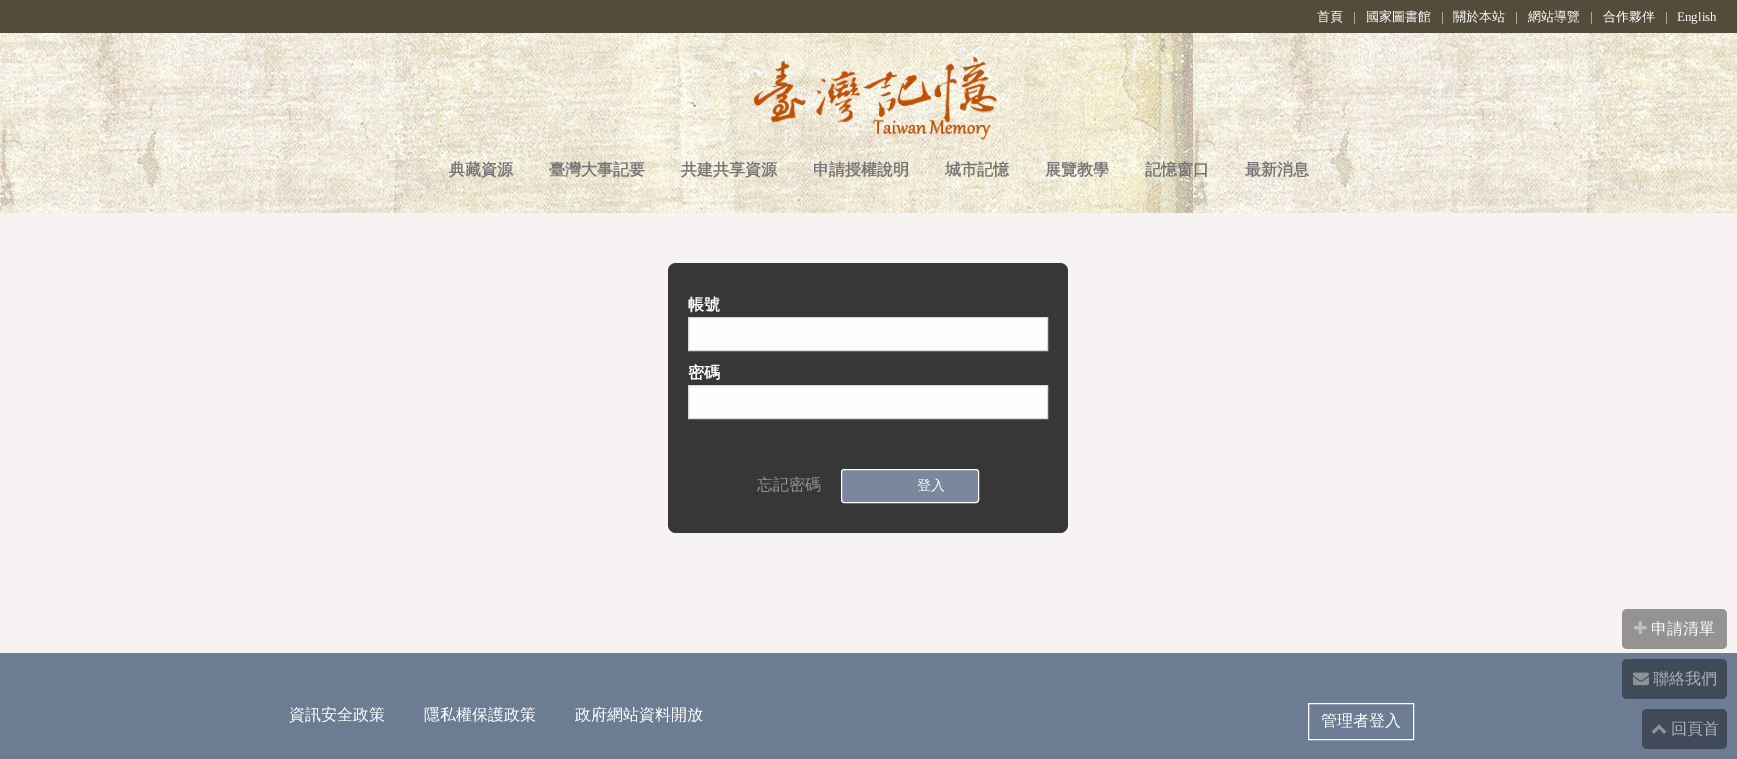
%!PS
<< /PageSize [1737 759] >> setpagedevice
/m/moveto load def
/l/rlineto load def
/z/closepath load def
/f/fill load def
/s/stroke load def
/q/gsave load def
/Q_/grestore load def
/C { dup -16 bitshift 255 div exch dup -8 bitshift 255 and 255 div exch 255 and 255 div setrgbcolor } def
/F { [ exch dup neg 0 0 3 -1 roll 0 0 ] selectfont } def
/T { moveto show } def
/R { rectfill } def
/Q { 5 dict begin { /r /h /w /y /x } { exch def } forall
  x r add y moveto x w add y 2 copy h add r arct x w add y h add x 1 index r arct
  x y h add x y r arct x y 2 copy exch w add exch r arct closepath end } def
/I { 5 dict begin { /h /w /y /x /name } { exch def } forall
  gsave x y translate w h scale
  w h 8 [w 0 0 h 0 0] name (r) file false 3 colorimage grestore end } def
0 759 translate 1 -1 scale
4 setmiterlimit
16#534C3B C
0 0 1737 759 R
/WenQuanYiZenHei-Medium 13 F
16#FFFFFF C
(首頁) 1317 21 T
/LiberationSerif-Regular 13 F
(|) 1353 21 T
/WenQuanYiZenHei-Medium 13 F
(國家圖書館) 1366 21 T
/LiberationSerif-Regular 13 F
(|) 1441 21 T
/WenQuanYiZenHei-Medium 13 F
(關於本站) 1453 21 T
/LiberationSerif-Regular 13 F
(|) 1515 21 T
/WenQuanYiZenHei-Medium 13 F
(網站導覽) 1528 21 T
/LiberationSerif-Regular 13 F
(|) 1590 21 T
/WenQuanYiZenHei-Medium 13 F
(合作夥伴) 1603 21 T
/LiberationSerif-Regular 13 F
(|) 1665 21 T
(English) 1677 21 T
(1.rgb) 0 33 1737 180 I
(2.rgb) 754 57 243 83 I
/WenQuanYiZenHei-Bold 16 F
16#777777 C
(典藏資源) 449 175 T
(臺灣大事記要) 549 175 T
(共建共享資源) 681 175 T
(申請授權說明) 813 175 T
(城市記憶) 945 175 T
(展覽教學) 1045 175 T
(記憶窗口) 1145 175 T
(最新消息) 1245 175 T
16#F8F3F3 C
0 213 1737 440 R
16#373737 C
668 263 400 270 8 Q f
16#FFFFFF C
(帳號) 688 310 T
16#FEFEFE C
688.5 317.5 m 359 0 l 0 33 l -359 0 l z q f Q_
16#D6D9E0 C
s
16#FFFFFF C
(密碼) 688 378 T
16#FEFEFE C
688.5 385.5 m 359 0 l 0 33 l -359 0 l z q f Q_
16#D6D9E0 C
s
/WenQuanYiZenHei-Medium 16 F
16#939393 C
(忘記密碼) 757 490 T
16#7A889C C
841.5 469.5 137 33 2.5 Q q f Q_
16#FEFEFE C
s
/WenQuanYiZenHei-Medium 14 F
16#FFFFFF C
(登入) 917 490 T
16#6C7C92 C
0 653 1737 106 R
/WenQuanYiZenHei-Medium 16 F
16#FFFFFF C
(資訊安全政策) 289 720 T
(隱私權保護政策) 424 720 T
(政府網站資料開放) 575 720 T
1308.5 703.5 105 36 rectstroke
(管理者登入) 1321 726 T
16#959292 C
1622 609 105 40 5 Q f
(3.rgb) 1634 621 13 13 I
16#FBF8F8 C
(申請清單) 1651 634 T
16#414A58 C
1622 659 105 40 5 Q f
(4.rgb) 1633 672 16 14 I
16#A7B0BE C
(聯絡我們) 1653 684 T
16#414A58 C
1642 709 85 40 5 Q f
(5.rgb) 1651 724 16 10 I
16#A7B0BE C
(回頁首) 1671 734 T
showpage
